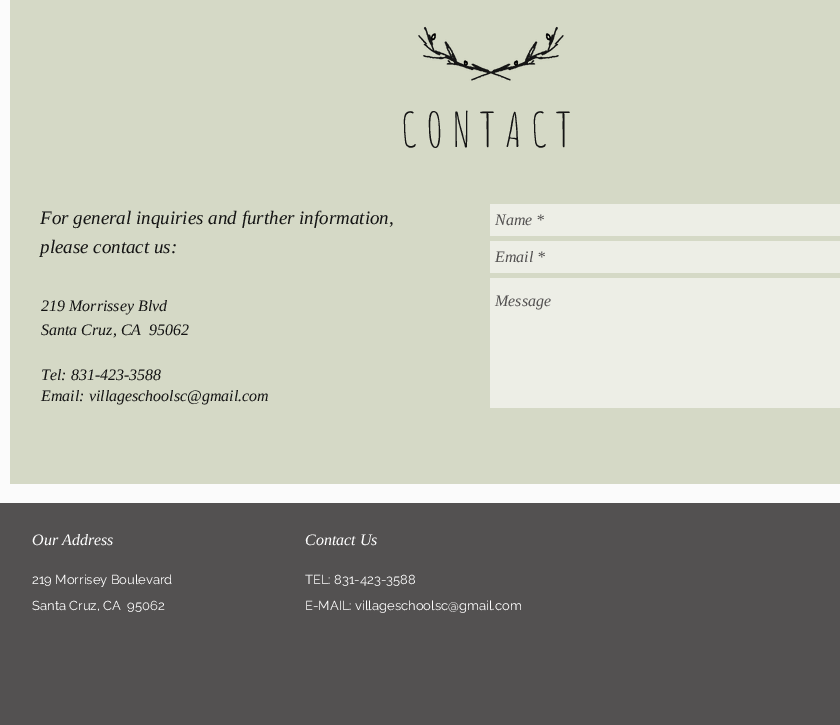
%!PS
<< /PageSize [840 725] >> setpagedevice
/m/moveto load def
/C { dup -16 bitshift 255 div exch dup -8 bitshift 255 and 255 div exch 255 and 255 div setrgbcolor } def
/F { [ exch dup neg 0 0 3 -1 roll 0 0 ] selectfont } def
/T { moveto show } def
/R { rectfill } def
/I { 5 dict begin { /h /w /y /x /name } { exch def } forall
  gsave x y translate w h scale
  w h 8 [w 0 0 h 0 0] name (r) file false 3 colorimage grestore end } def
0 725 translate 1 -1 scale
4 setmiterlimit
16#FBFBFB C
0 0 840 725 R
16#D5D9C6 C
10 0 830 484 R
(1.rgb) 418 26 146 55 I
/AmaticSC-Regular 47 F
16#141414 C
401 147 m 9.5 0 (CONTACT) ashow
/LiberationSerif-Italic 19 F
(For general inquiries and further information,) 40 224 T
(please contact us:) 40 253 T
16#EDEEE6 C
490 204 350 32 R
/LiberationSerif-Italic 16 F
16#535151 C
(Name *) 495 225 T
16#EDEEE6 C
490 241 350 32 R
16#535151 C
(Email *) 495 262 T
16#EDEEE6 C
490 278 350 130 R
16#535151 C
(Message) 495 306 T
16#141414 C
(219 Morrissey Blvd) 41 311 T
(Santa Cruz, CA  95062) 41 335 T
(Tel: 831-423-3588) 41 380 T
(Email: villageschoolsc@gmail.com) 41 401 T
16#535151 C
0 503 840 222 R
16#FFFFFF C
(Our Address) 32 545 T
(Contact Us) 305 545 T
/Raleway-Regular 13 F
(219 Morrisey Boulevard) 32 584 T
(Santa Cruz, CA  95062) 32 610 T
(TEL: 831-423-3588) 305 584 T
(E-MAIL: villageschoolsc@gmail.com) 305 610 T
showpage
